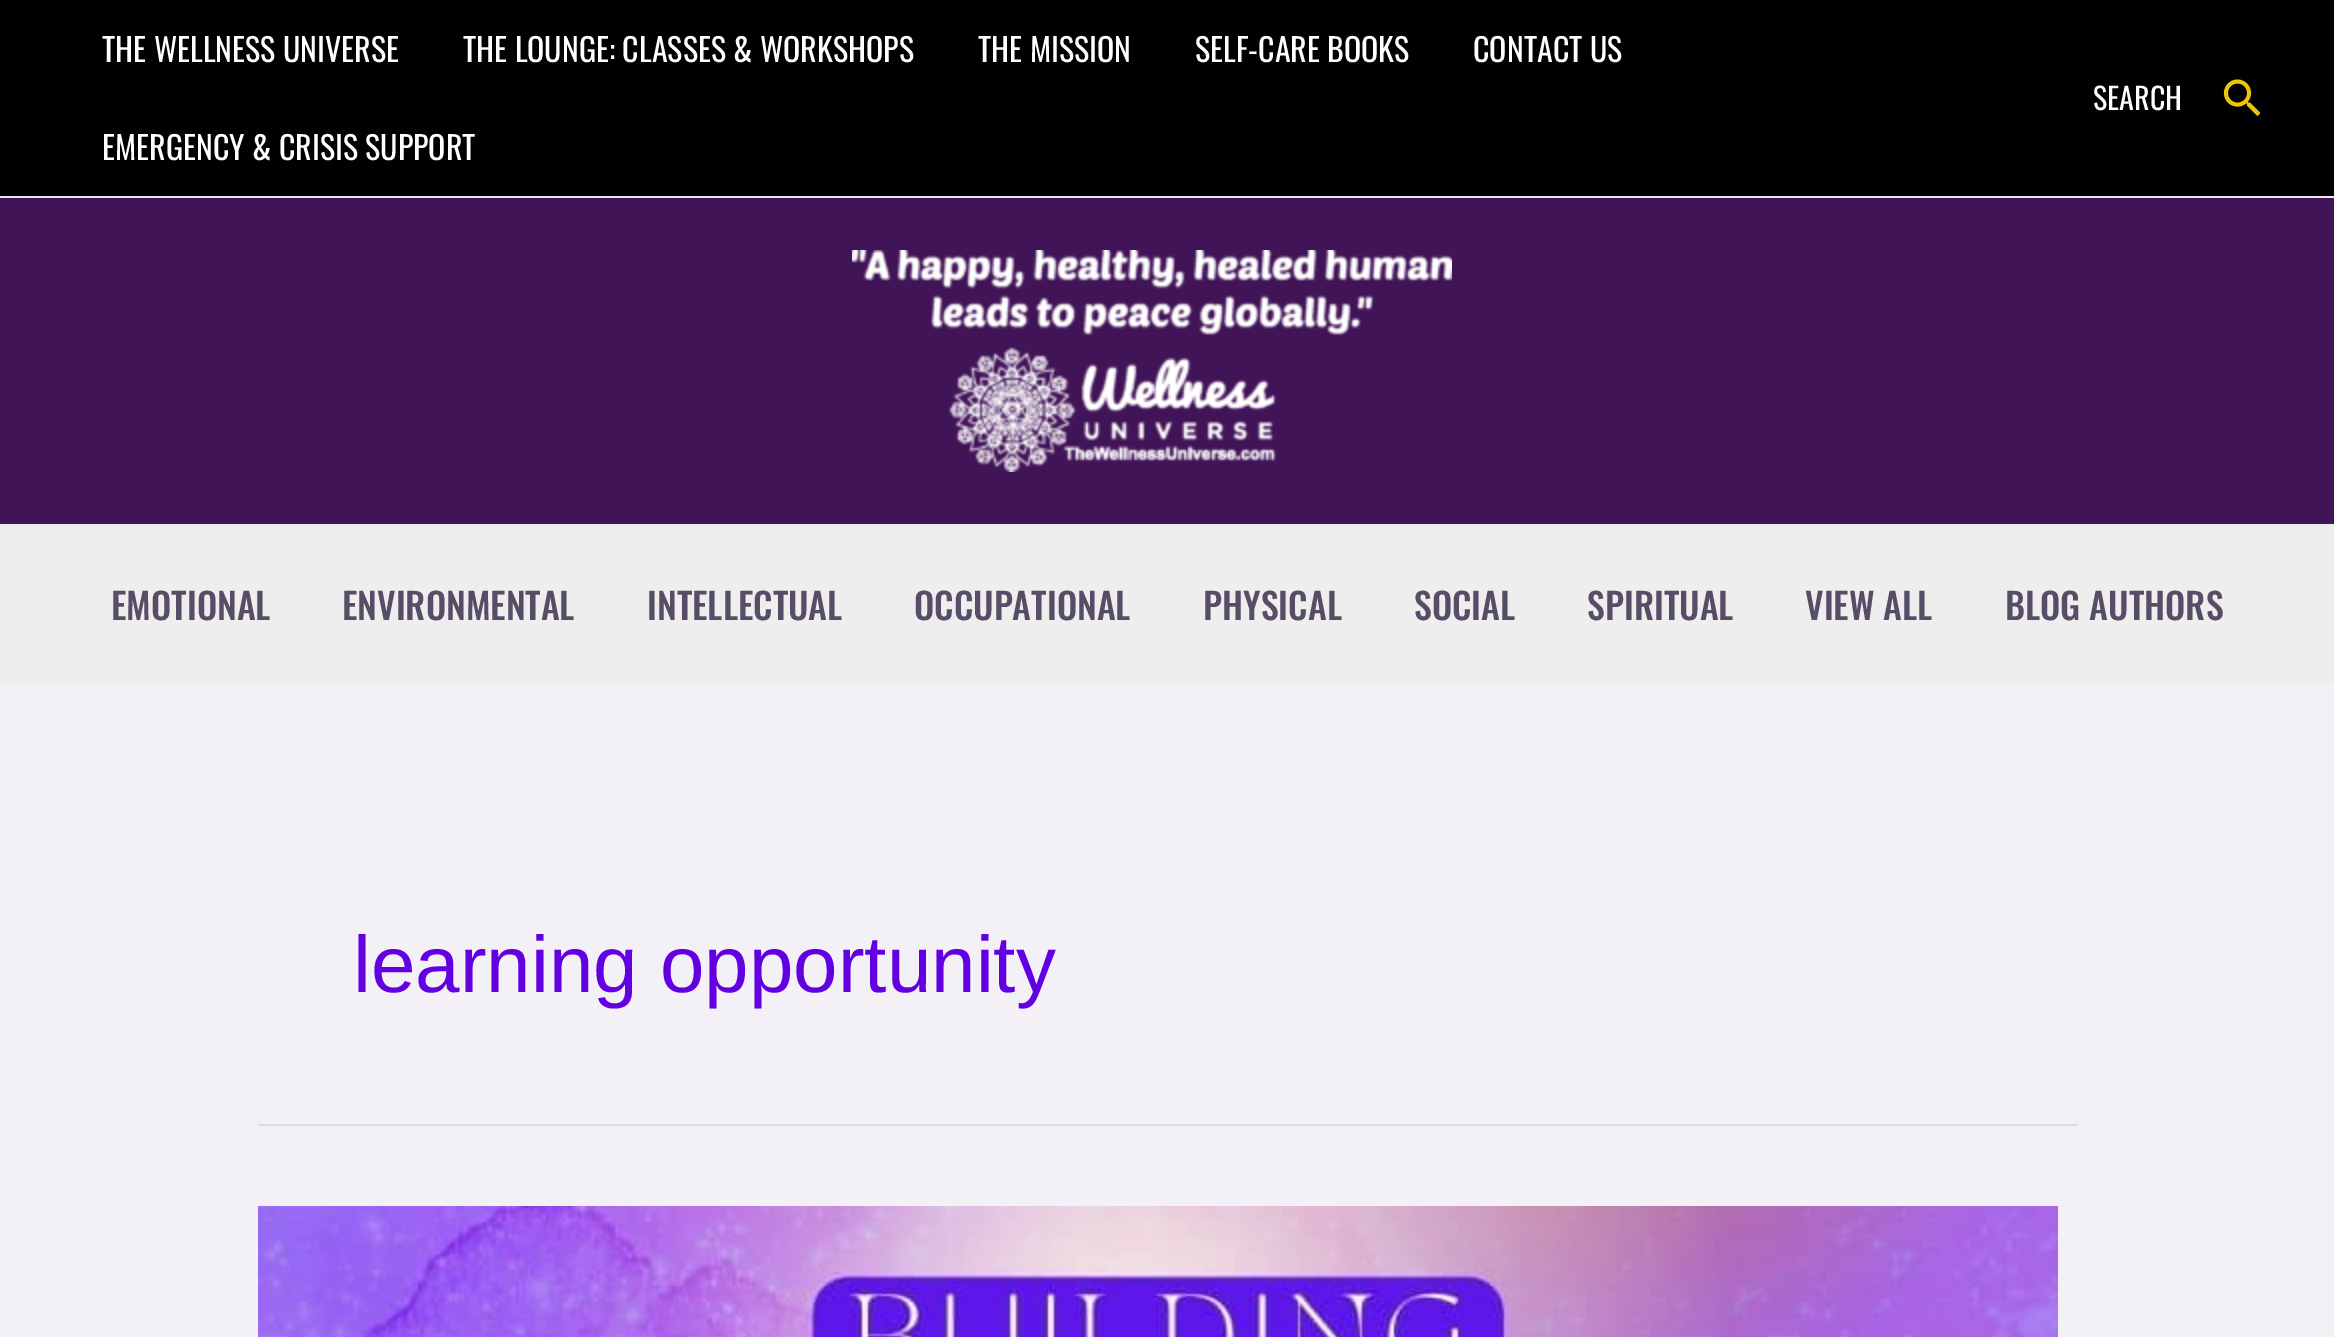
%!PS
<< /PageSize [2334 1337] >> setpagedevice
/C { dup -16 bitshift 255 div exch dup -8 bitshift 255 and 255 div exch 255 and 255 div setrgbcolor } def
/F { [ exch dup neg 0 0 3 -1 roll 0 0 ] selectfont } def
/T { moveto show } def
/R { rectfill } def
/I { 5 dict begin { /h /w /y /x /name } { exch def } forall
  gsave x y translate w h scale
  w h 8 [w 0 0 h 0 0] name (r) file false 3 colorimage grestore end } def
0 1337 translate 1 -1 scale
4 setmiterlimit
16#F3F1F6 C
0 0 2334 1337 R
16#010002 C
0 0 2334 196 R
16#EAEAEA C
0 196 2334 2 R
/Oswald-Regular 32 F
16#FFFFFF C
(THE WELLNESS UNIVERSE) 102 62 T
(THE LOUNGE: CLASSES & WORKSHOPS) 463 62 T
(THE MISSION) 978 62 T
(SELF-CARE BOOKS) 1195 62 T
(CONTACT US) 1473 62 T
(EMERGENCY & CRISIS SUPPORT) 102 160 T
/Oswald-Regular 30 F
(SEARCH) 2093 110 T
(1.rgb) 2223 79 37 38 I
16#411357 C
0 198 2334 326 R
16#EAEAEA C
0 524 2334 2 R
(2.rgb) 852 250 600 222 I
16#EEEEEE C
0 526 2334 158 R
/Oswald-Medium 36 F
16#584D66 C
(EMOTIONAL) 111 620 T
(ENVIRONMENTAL) 342 620 T
(INTELLECTUAL) 647 620 T
(OCCUPATIONAL) 914 620 T
(PHYSICAL) 1203 620 T
(SOCIAL) 1414 620 T
(SPIRITUAL) 1587 620 T
(VIEW ALL) 1805 620 T
(BLOG AUTHORS) 2005 620 T
16#DDDDDD C
258 1124 1820 2 R
/LiberationSans-Regular 80 F
16#6300E2 C
(learning opportunity) 353 992 T
(3.rgb) 258 1206 1800 131 I
showpage
